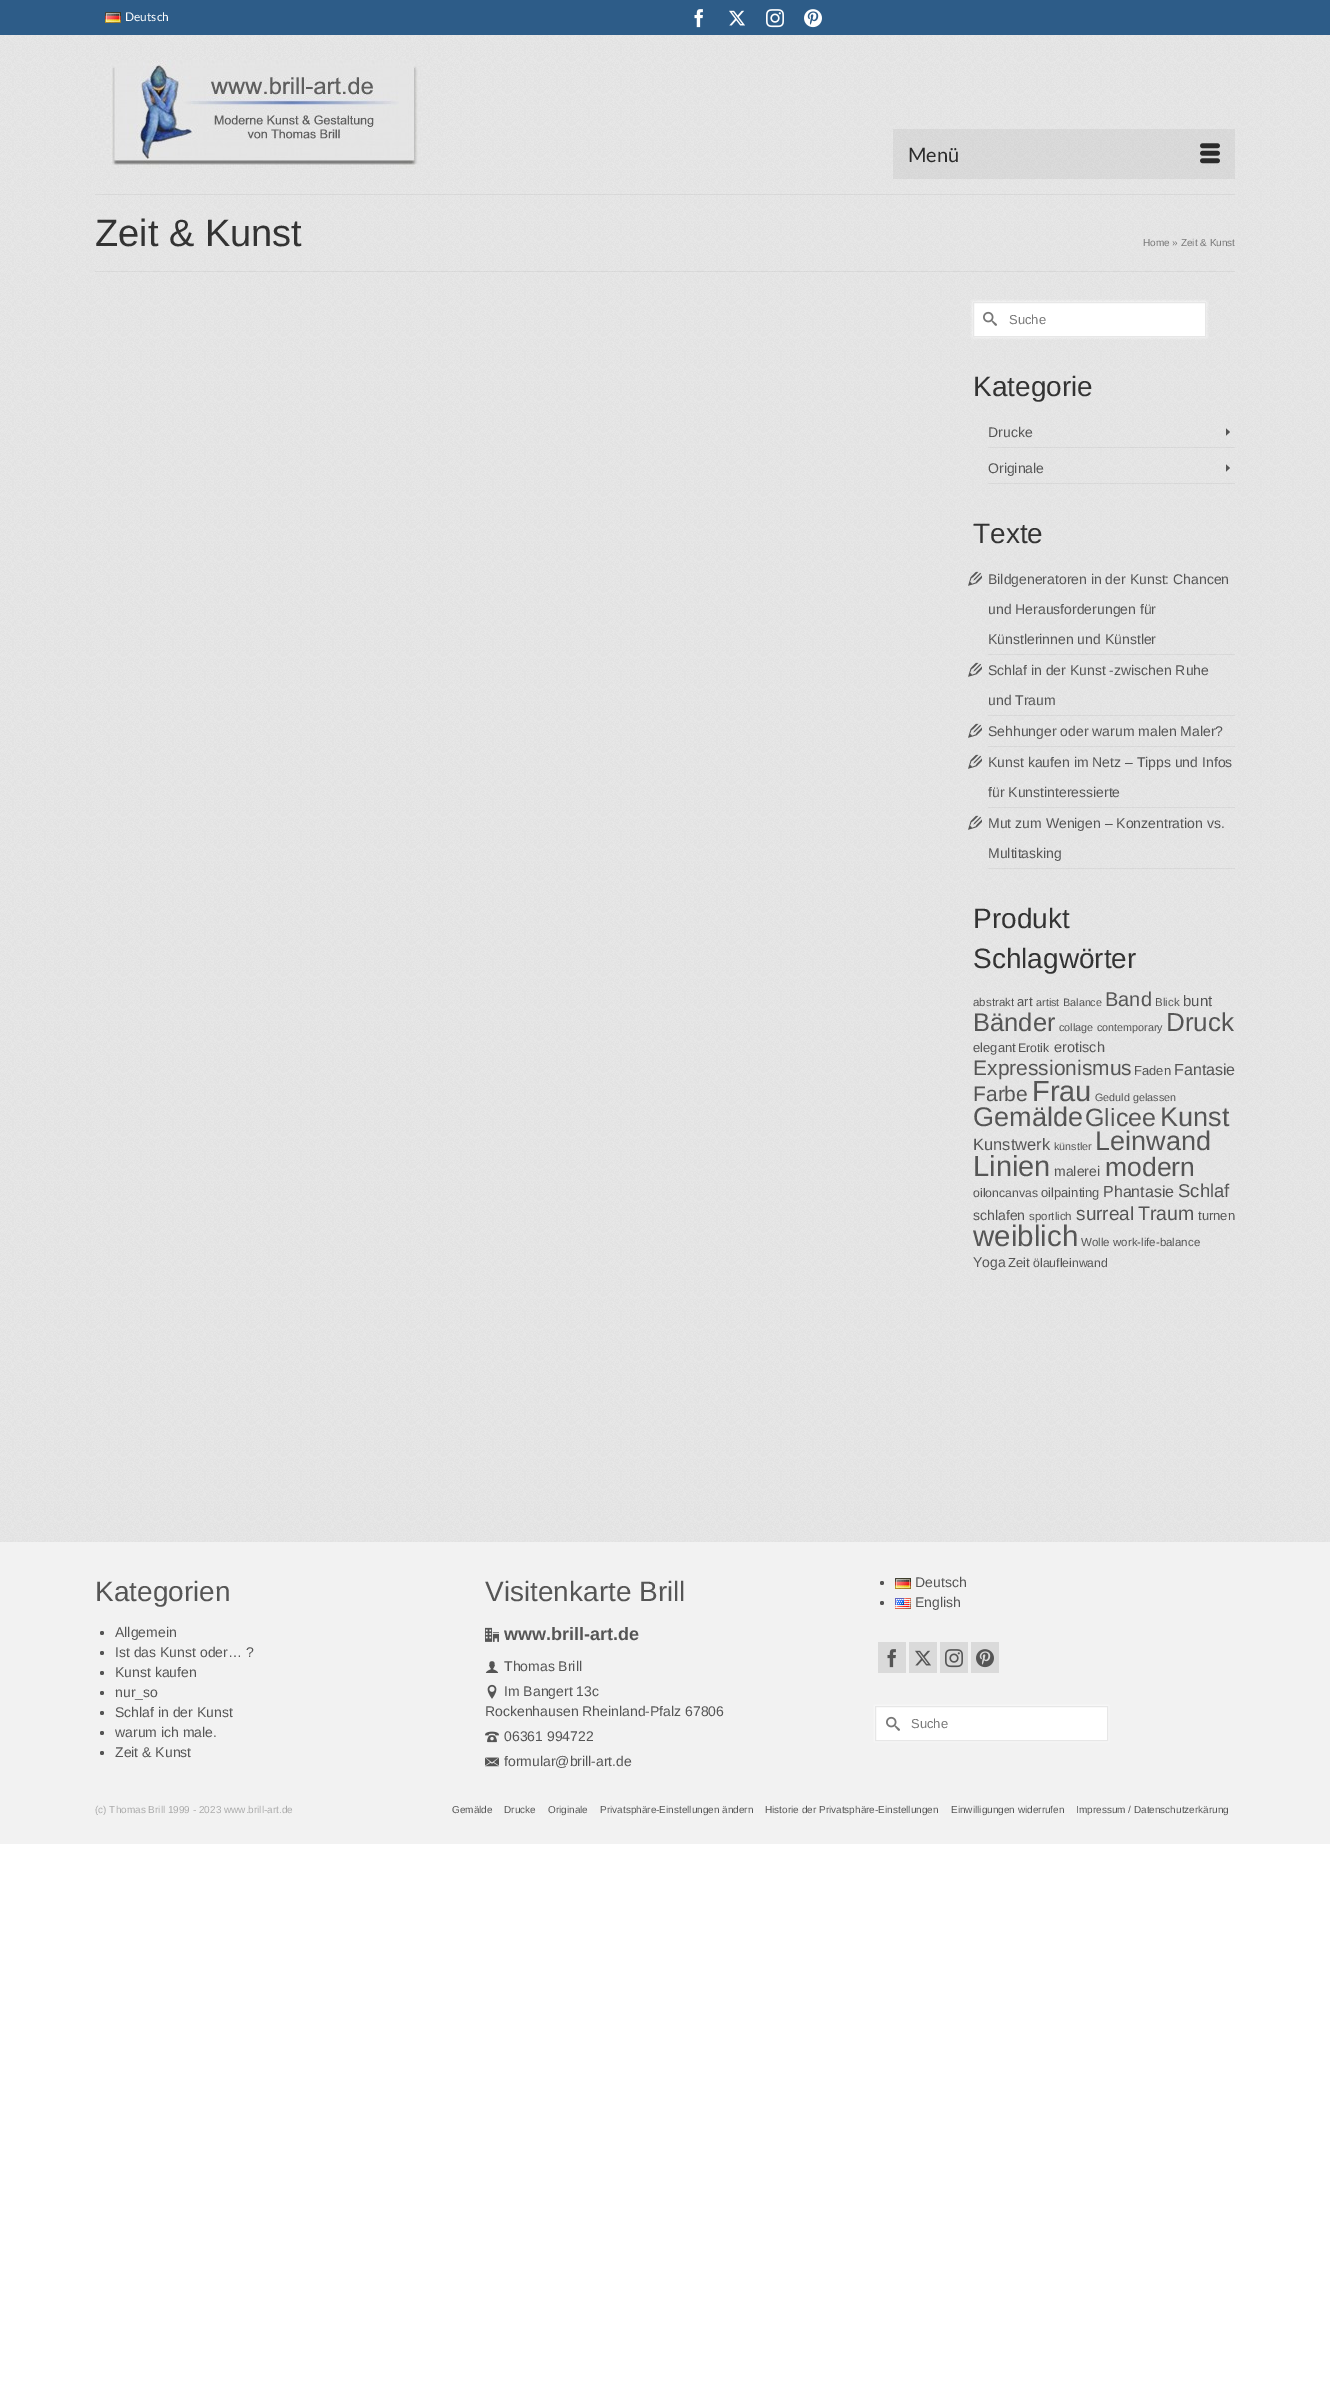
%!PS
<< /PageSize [1330 2401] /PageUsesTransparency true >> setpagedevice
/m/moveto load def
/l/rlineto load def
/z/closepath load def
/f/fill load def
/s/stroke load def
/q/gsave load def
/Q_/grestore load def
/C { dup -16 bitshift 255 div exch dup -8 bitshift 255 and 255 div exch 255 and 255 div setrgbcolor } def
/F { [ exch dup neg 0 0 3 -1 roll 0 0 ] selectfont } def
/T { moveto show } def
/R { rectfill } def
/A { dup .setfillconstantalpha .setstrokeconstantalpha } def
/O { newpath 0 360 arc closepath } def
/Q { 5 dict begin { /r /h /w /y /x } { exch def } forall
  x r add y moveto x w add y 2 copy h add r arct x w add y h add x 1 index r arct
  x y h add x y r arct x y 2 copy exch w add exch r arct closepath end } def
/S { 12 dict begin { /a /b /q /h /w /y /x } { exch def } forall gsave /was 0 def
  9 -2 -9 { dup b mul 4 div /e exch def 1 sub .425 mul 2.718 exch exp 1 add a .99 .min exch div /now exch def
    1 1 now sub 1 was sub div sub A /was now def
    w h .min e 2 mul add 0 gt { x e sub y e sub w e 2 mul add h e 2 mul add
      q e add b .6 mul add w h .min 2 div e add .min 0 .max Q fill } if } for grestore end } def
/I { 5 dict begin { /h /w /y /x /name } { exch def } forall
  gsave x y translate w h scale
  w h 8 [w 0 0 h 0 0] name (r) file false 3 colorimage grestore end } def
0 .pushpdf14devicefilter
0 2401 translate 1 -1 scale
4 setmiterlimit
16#FFFFFF C
0 0 1330 2401 R
(1.rgb) 0 35 1330 144 I
16#2D5C88 C
0 0 1330 35 R
(2.rgb) 105 12 16 11 I
/Lato-Regular 12 F
16#FFFFFF C
(Deutsch) 125 21 T
(3.rgb) 694 9 9 19 I
(4.rgb) 729 10 16 16 I
(5.rgb) 766 9 18 19 I
(6.rgb) 804 9 18 19 I
(7.rgb) 95 60 330 109 I
0.05 A
16#000000 C
893 129 342 50 R
/Lato-Regular 20 F
1 A
16#2B2B2B C
(Menü) 908 162 T
(8.rgb) 1200 143 20 21 I
(9.rgb) 0 179 1330 1363 I
0.05 A
16#000000 C
95 194 1140 1 R
95 271 1140 1 R
/LiberationSans-Regular 38 F
1 A
16#333333 C
(Zeit & Kunst) 95 246 T
/LiberationSans-Regular 10 F
16#777777 C
(Home » Zeit & Kunst) 1143 246 T
16#FFFFFF C
973 302 233 35 0 1.5 1 S
973.5 302.5 m 232 0 l 0 34 l -232 0 l z q f Q_
16#E7E7E7 C
s
(10.rgb) 983 311 14 15 I
/LiberationSans-Regular 13 F
16#777777 C
(Suche) 1009 324 T
/LiberationSans-Regular 28 F
16#333333 C
(Kategorie) 973 396 T
0.05 A
16#000000 C
988 447 247 1 R
/LiberationSans-Regular 14 F
1 A
16#555555 C
(Drucke) 988 437 T
1226 435.5 m 4 -3.5 l -4 -3.5 l z 1226 471.5 m 4 -3.5 l -4 -3.5 l z f
0.05 A
16#000000 C
988 483 247 1 R
1 A
16#555555 C
(Originale) 988 473 T
/LiberationSans-Regular 28 F
16#333333 C
(Texte) 973 543 T
0.05 A
16#000000 C
988 654 247 1 R
1 A
(11.rgb) 968 571 14 15 I
/LiberationSans-Regular 14 F
16#555555 C
(Bildgeneratoren in der Kunst: Chancen) 988 584 T
(und Herausforderungen für) 988 614 T
(Künstlerinnen und Künstler) 988 644 T
0.05 A
16#000000 C
988 715 247 1 R
1 A
(12.rgb) 968 662 14 15 I
16#555555 C
(Schlaf in der Kunst -zwischen Ruhe) 988 675 T
(und Traum) 988 705 T
0.05 A
16#000000 C
988 746 247 1 R
1 A
(13.rgb) 968 723 14 15 I
16#555555 C
(Sehhunger oder warum malen Maler?) 988 736 T
0.05 A
16#000000 C
988 807 247 1 R
1 A
(14.rgb) 968 754 14 15 I
16#555555 C
(Kunst kaufen im Netz – Tipps und Infos) 988 767 T
(für Kunstinteressierte) 988 797 T
0.05 A
16#000000 C
988 868 247 1 R
1 A
(15.rgb) 968 815 14 15 I
16#555555 C
(Mut zum Wenigen – Konzentration vs.) 988 828 T
(Multitasking) 988 858 T
/LiberationSans-Regular 28 F
16#333333 C
(Produkt) 973 928 T
(Schlagwörter) 973 968 T
/LiberationSans-Regular 11.5 F
16#555555 C
(abstrakt) 973 1006 T
/LiberationSans-Regular 13 F
(art) 1017 1006 T
/LiberationSans-Regular 10.75 F
(artist) 1036 1006 T
(Balance) 1063 1006 T
/LiberationSans-Regular 20 F
(Band) 1105 1006 T
/LiberationSans-Regular 11.5 F
(Blick) 1155 1006 T
/LiberationSans-Regular 15 F
(bunt) 1183 1006 T
/LiberationSans-Regular 25.5 F
(Bänder) 973 1031 T
/LiberationSans-Regular 10.75 F
(collage) 1059 1031 T
(contemporary) 1097 1031 T
/LiberationSans-Regular 26 F
(Druck) 1166 1031 T
/LiberationSans-Regular 13 F
(elegant) 973 1052 T
/LiberationSans-Regular 12.25 F
(Erotik) 1018 1052 T
/LiberationSans-Regular 14.5 F
(erotisch) 1054 1052 T
/LiberationSans-Regular 21 F
(Expressionismus) 973 1075 T
/LiberationSans-Regular 13 F
(Faden) 1134 1075 T
/LiberationSans-Regular 16 F
(Fantasie) 1174 1075 T
/LiberationSans-Regular 21 F
(Farbe) 973 1101 T
/LiberationSans-Regular 29 F
(Frau) 1032 1101 T
/LiberationSans-Regular 10.75 F
(Geduld) 1095 1101 T
(gelassen) 1133 1101 T
/LiberationSans-Regular 27 F
(Gemälde) 973 1126 T
/LiberationSans-Regular 25 F
(Glicee) 1085 1126 T
/LiberationSans-Regular 27 F
(Kunst) 1160 1126 T
/LiberationSans-Regular 16.5 F
(Kunstwerk) 973 1150 T
/LiberationSans-Regular 10.75 F
(künstler) 1054 1150 T
/LiberationSans-Regular 27 F
(Leinwand) 1095 1150 T
/LiberationSans-Regular 29 F
(Linien) 973 1176 T
/LiberationSans-Regular 14 F
(malerei) 1054 1176 T
/LiberationSans-Regular 26.5 F
(modern) 1105 1176 T
/LiberationSans-Regular 12.25 F
(oiloncanvas) 973 1197 T
/LiberationSans-Regular 13 F
(oilpainting) 1041 1197 T
/LiberationSans-Regular 16 F
(Phantasie) 1103 1197 T
/LiberationSans-Regular 18.5 F
(Schlaf) 1178 1197 T
/LiberationSans-Regular 14 F
(schlafen) 973 1220 T
/LiberationSans-Regular 11.5 F
(sportlich) 1029 1220 T
/LiberationSans-Regular 19 F
(surreal) 1076 1220 T
/LiberationSans-Regular 19.5 F
(Traum) 1138 1220 T
/LiberationSans-Regular 13 F
(turnen) 1198 1220 T
/LiberationSans-Regular 29.5 F
(weiblich) 973 1246 T
/LiberationSans-Regular 11.5 F
(Wolle) 1081 1246 T
(work-life-balance) 1113 1246 T
/LiberationSans-Regular 14 F
(Yoga) 973 1267 T
/LiberationSans-Regular 13 F
(Zeit) 1008 1267 T
/LiberationSans-Regular 12.25 F
(ölaufleinwand) 1033 1267 T
16#F2F2F2 C
0 1542 1330 302 R
/LiberationSans-Regular 28 F
16#555555 C
(Kategorien) 95 1601 T
102 1633 2 O f
/LiberationSans-Regular 14 F
(Allgemein) 115 1637 T
102 1653 2 O f
(Ist das Kunst oder… ?) 115 1657 T
102 1673 2 O f
(Kunst kaufen) 115 1677 T
102 1693 2 O f
(nur_so) 115 1697 T
102 1713 2 O f
(Schlaf in der Kunst) 115 1717 T
102 1733 2 O f
(warum ich male.) 115 1737 T
102 1753 2 O f
(Zeit & Kunst) 115 1757 T
/LiberationSans-Regular 28 F
(Visitenkarte Brill) 485 1601 T
(16.rgb) 485 1627 14 15 I
/LiberationSans-Bold 18 F
(www.brill-art.de) 504 1640 T
(17.rgb) 485 1661 14 12 I
/LiberationSans-Regular 14 F
(Thomas Brill) 504 1671 T
(18.rgb) 487 1684 10 15 I
(Im Bangert 13c) 504 1696 T
(Rockenhausen Rheinland-Pfalz 67806) 485 1716 T
(19.rgb) 485 1731 14 12 I
(06361 994722) 504 1741 T
(20.rgb) 485 1757 14 10 I
(formular@brill-art.de) 504 1766 T
882 1583 2 O f
(2.rgb) 895 1578 16 11 I
(Deutsch) 915 1587 T
882 1603 2 O f
(21.rgb) 895 1598 16 11 I
(English) 915 1607 T
16#DADADA C
878 1642 28 31 R
(22.rgb) 887 1649 9 19 I
909 1642 28 31 R
(23.rgb) 915 1650 16 16 I
940 1642 28 31 R
(24.rgb) 945 1649 18 19 I
971 1642 28 31 R
(25.rgb) 976 1649 18 19 I
16#FFFFFF C
875 1706 233 35 0 1.5 1 S
875.5 1706.5 m 232 0 l 0 34 l -232 0 l z q f Q_
16#E7E7E7 C
s
(10.rgb) 886 1716 14 15 I
/LiberationSans-Regular 13 F
16#777777 C
(Suche) 911 1728 T
/LiberationSans-Regular 10 F
16#AAAAAA C
(\(c\) Thomas Brill 1999 - 2023 www.brill-art.de) 95 1813 T
16#555555 C
(Gemälde) 452 1813 T
(Drucke) 504 1813 T
(Originale) 548 1813 T
(Privatsphäre-Einstellungen ändern) 600 1813 T
(Historie der Privatsphäre-Einstellungen) 765 1813 T
(Einwilligungen widerrufen) 951 1813 T
(Impressum / Datenschutzerkärung) 1076 1813 T
.poppdf14devicefilter showpage
